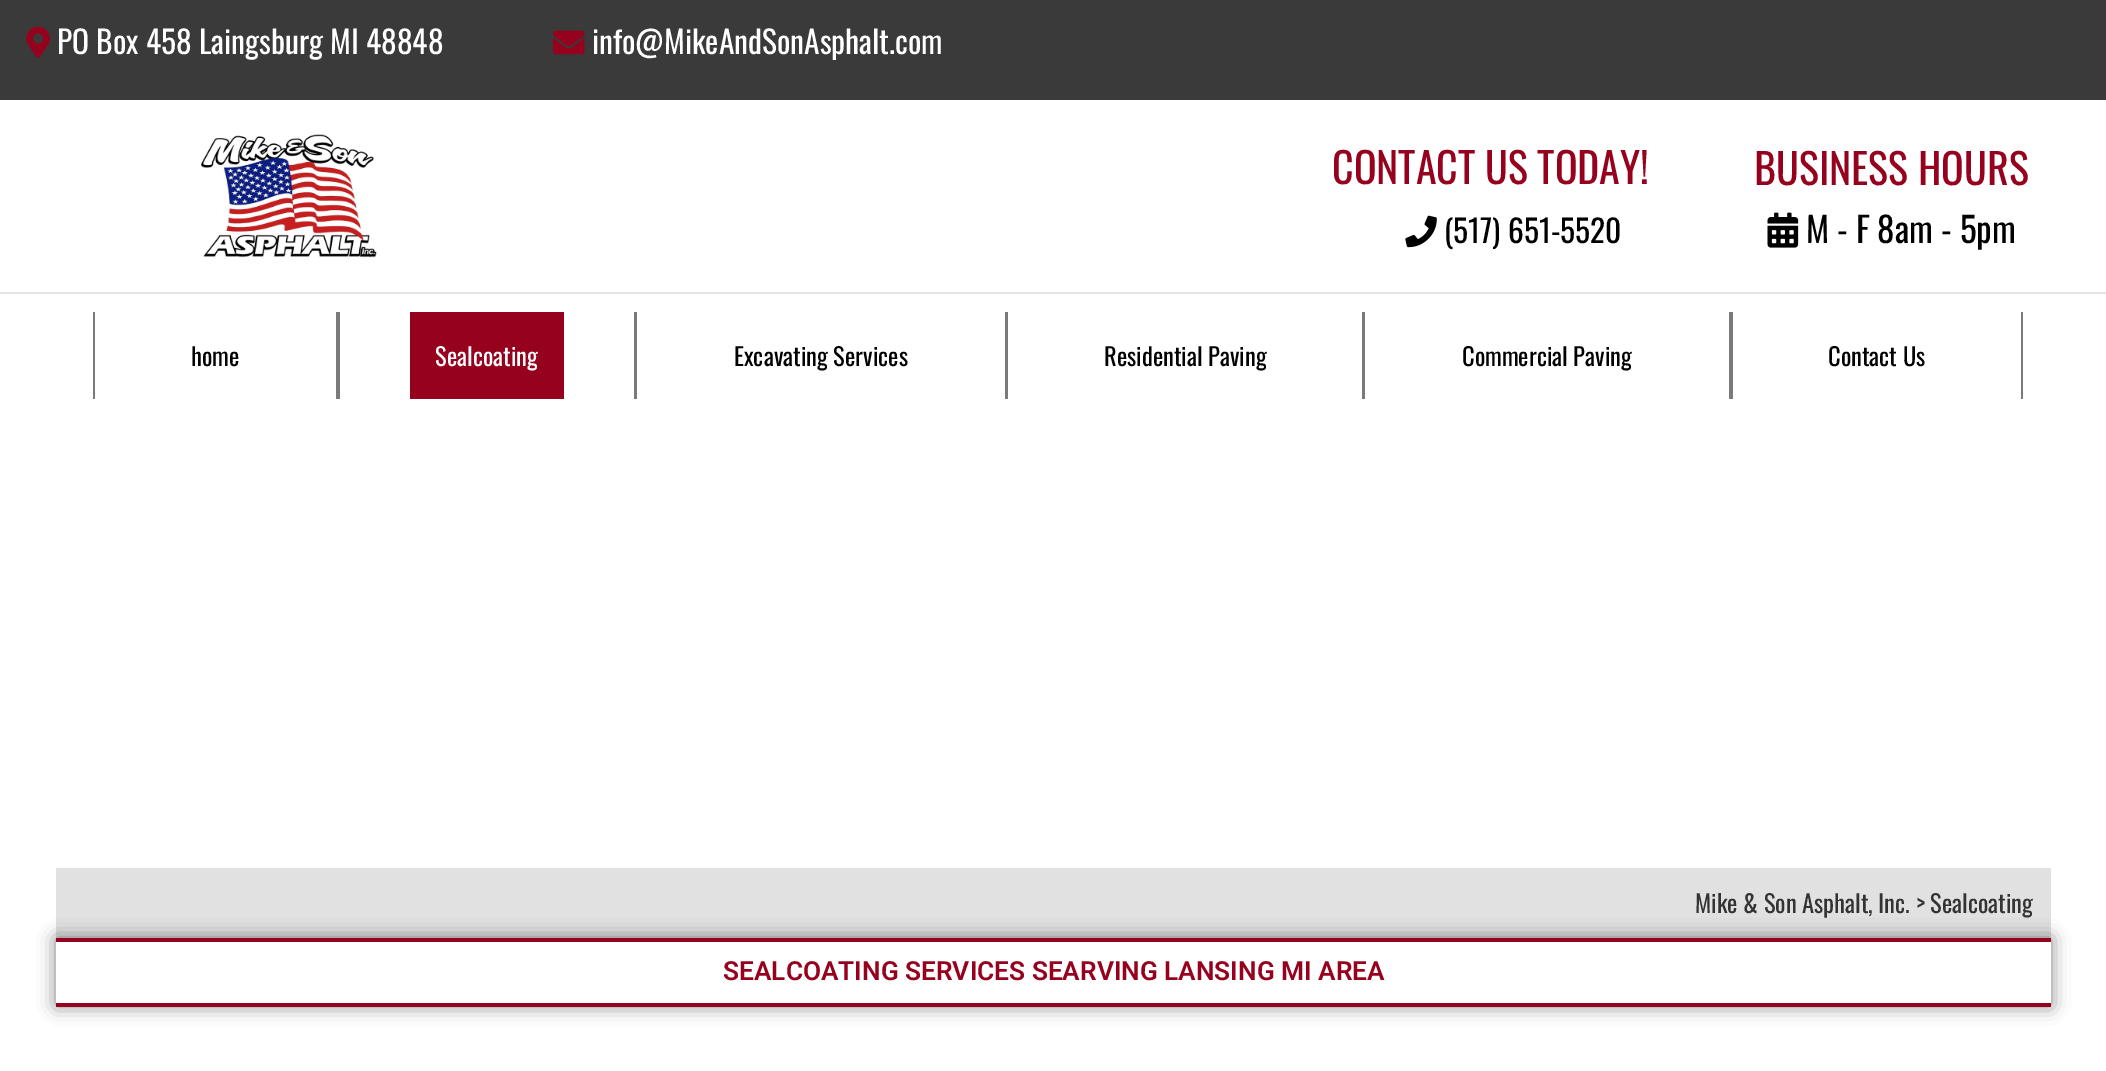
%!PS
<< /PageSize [2106 1071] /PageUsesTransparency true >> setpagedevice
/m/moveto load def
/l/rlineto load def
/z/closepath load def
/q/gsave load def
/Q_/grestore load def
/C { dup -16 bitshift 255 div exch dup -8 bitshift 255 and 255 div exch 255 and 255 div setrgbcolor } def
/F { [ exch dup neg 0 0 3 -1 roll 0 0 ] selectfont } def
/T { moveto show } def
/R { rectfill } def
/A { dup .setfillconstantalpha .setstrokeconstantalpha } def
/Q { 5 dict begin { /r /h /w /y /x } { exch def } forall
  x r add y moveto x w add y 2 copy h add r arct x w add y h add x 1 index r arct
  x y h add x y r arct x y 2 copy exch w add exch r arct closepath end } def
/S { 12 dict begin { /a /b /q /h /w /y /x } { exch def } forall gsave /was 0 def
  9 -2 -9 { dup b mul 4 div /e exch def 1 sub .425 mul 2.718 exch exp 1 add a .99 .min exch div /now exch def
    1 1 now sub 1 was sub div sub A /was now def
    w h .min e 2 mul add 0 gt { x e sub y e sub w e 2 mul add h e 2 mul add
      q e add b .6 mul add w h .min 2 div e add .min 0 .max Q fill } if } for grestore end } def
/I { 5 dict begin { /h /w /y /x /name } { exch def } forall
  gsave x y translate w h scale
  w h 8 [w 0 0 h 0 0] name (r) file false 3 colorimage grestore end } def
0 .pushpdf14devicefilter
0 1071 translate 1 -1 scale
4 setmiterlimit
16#FFFFFF C
0 0 2106 1071 R
16#3A3A3A C
0 0 2106 100 R
(1.rgb) 26 26 24 33 I
/Oswald-Regular 31.5 F
16#FFFFFF C
(PO Box 458 Laingsburg MI 48848) 57 54 T
(2.rgb) 553 30 32 25 I
(info@MikeAndSonAsphalt.com) 592 54 T
(3.rgb) 201 134 176 124 I
/Oswald-Regular 42 F
16#96011D C
(CONTACT US TODAY!) 1332 184 T
(4.rgb) 1405 215 32 33 I
/Oswald-Regular 31.5 F
16#000000 C
(\(517\) 651-5520) 1444 243 T
/Oswald-Regular 42 F
16#96011D C
(BUSINESS HOURS) 1754 185 T
(5.rgb) 1767 212 32 36 I
/Oswald-Regular 35 F
16#000000 C
(M - F 8am - 5pm) 1806 243 T
16#E4E4E4 C
0 292 2106 2 R
16#7A7A7A C
336 312 4 87 R
93 312 2 87 R
/Oswald-Regular 24.5 F
16#000000 C
(home) 191 366 T
16#7A7A7A C
634 312 3 87 R
16#96011D C
410 312 154 87 R
16#FFFFFF C
(Sealcoating) 435 366 T
16#7A7A7A C
1005 312 3 87 R
16#000000 C
(Excavating Services) 734 366 T
16#7A7A7A C
1362 312 3 87 R
16#000000 C
(Residential Paving) 1104 366 T
16#7A7A7A C
1729 312 4 87 R
16#000000 C
(Commercial Paving) 1462 366 T
16#7A7A7A C
2021 312 2 87 R
16#000000 C
(Contact Us) 1828 366 T
16#E1E1E1 C
56 868 1995 70 R
16#333333 C
(Mike & Son Asphalt, Inc. > Sealcoating) 1695 913 T
q
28 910 m 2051 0 l 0 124 l -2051 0 l z 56 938 m 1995 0 l 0 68 l -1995 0 l z eoclip newpath
16#000000 C
56 938 1995 68 0 9 .5 S
Q_
16#96011D C
56 938 1995 4 R
56 1003 1995 4 R
/Roboto-SemiBold 26.25 F
(SEALCOATING SERVICES SEARVING LANSING MI AREA) 723 980 T
.poppdf14devicefilter showpage
